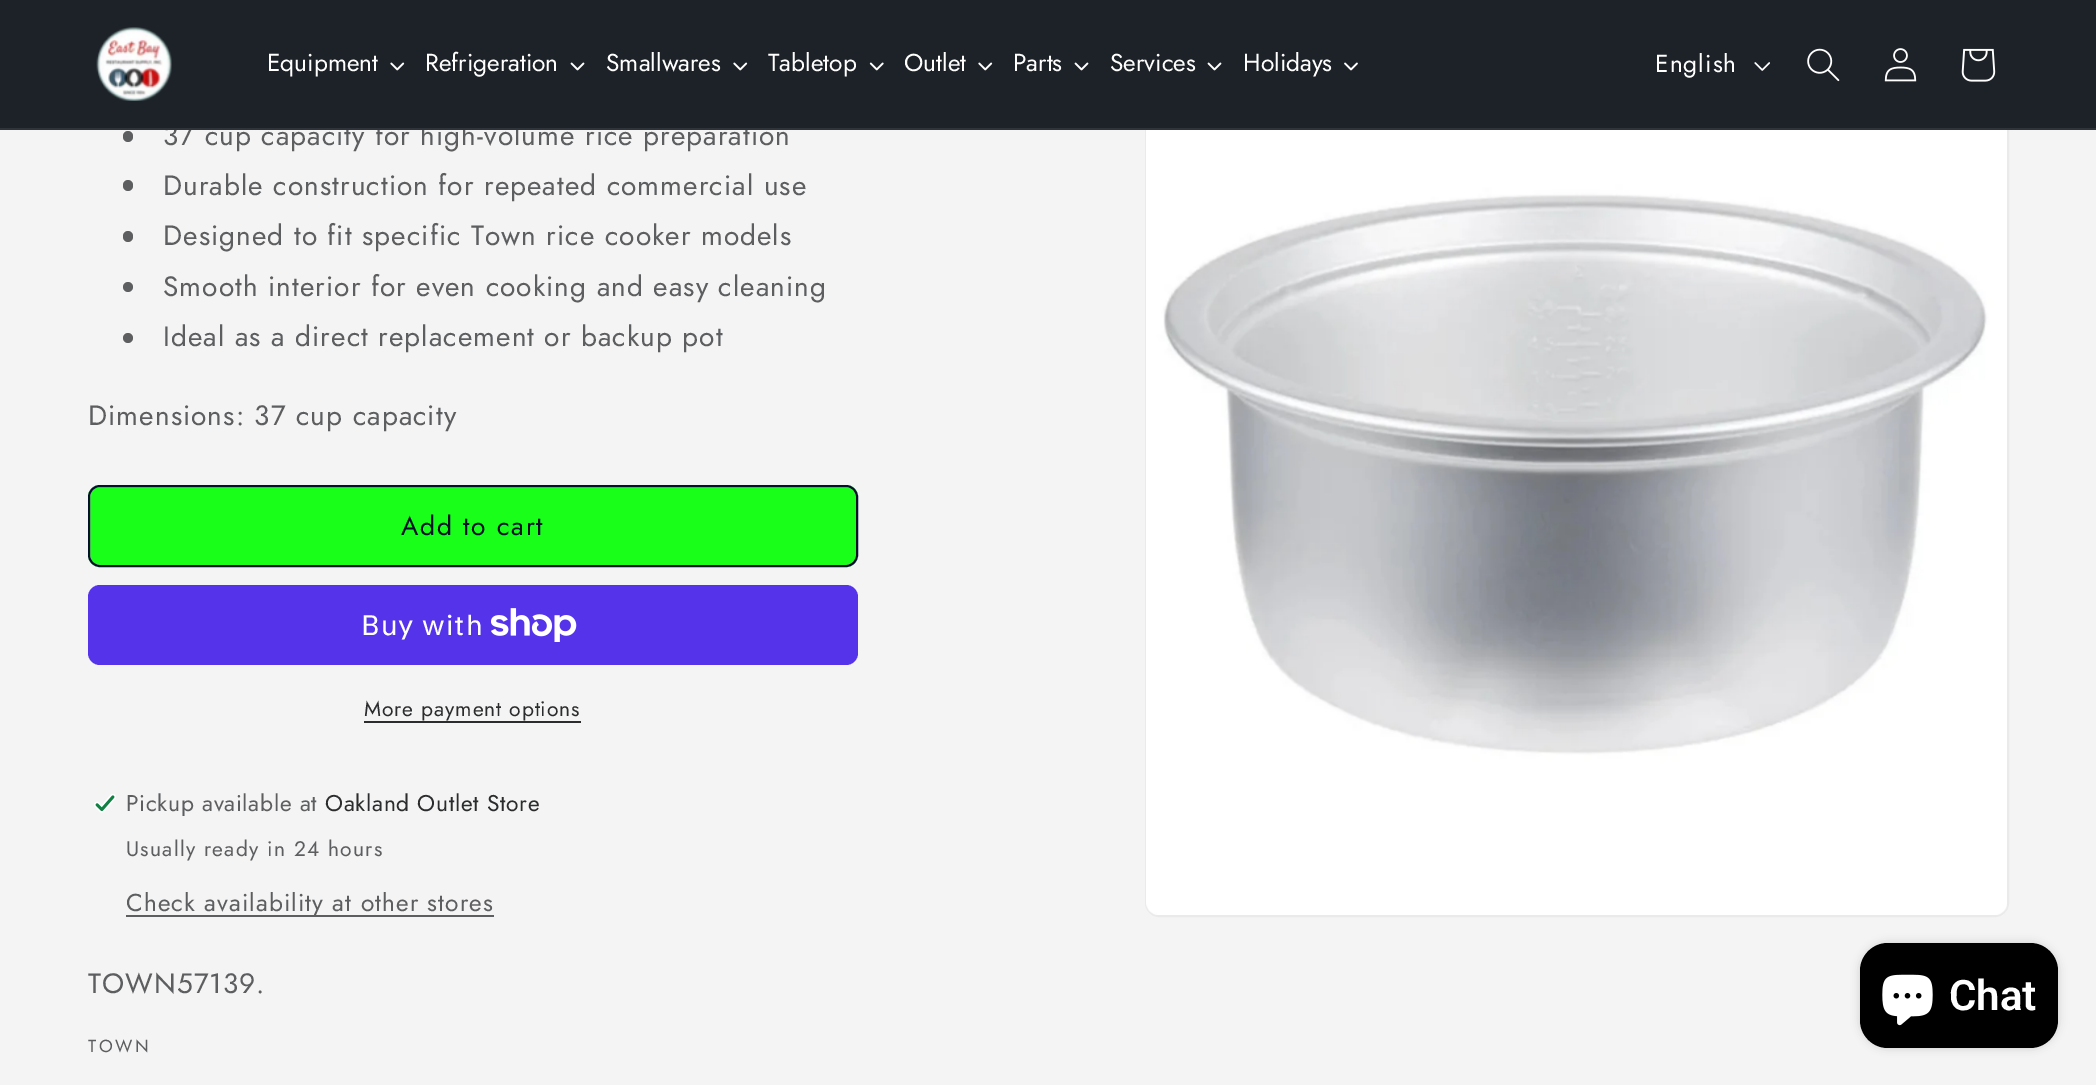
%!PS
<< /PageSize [2096 1085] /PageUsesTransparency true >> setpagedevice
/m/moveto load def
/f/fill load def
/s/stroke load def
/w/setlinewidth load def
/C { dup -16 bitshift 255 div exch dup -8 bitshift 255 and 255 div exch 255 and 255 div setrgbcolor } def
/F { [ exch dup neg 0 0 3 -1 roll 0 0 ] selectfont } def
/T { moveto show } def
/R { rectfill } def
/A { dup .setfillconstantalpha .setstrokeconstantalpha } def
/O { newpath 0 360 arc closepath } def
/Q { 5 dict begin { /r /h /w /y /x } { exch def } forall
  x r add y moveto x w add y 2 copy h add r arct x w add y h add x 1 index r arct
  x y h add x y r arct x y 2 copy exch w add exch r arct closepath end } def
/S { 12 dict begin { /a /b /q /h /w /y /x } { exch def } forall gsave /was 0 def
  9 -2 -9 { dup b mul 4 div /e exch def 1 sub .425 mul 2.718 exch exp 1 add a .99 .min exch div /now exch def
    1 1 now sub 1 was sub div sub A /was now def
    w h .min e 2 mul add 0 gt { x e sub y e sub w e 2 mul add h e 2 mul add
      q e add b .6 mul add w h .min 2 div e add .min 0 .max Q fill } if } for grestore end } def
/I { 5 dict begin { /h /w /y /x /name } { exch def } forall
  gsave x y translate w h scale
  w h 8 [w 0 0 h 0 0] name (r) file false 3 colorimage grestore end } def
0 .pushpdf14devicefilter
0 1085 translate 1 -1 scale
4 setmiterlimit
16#F4F4F4 C
0 0 2096 1085 R
/Jost-Regular 28 F
16#5D5E5F C
163 145 m 1.05 0 (37 cup capacity for high-volume rice preparation) ashow
16#EAEAEA C
2 w
1146 54 862 862 13 Q s
16#1C2228 C
0 0 2096 128 R
16#2E3439 C
0 128 2096 2 R
(1.rgb) 96 27 76 74 I
/Jost-Regular 24.5 F
16#FFFFFF C
(Equipment) 267 71 T
(2.rgb) 390 62 15 9 I
(Refrigeration) 425 71 T
(3.rgb) 570 62 15 9 I
(Smallwares) 606 71 T
(2.rgb) 733 62 15 9 I
(Tabletop) 768 71 T
(4.rgb) 869 62 15 9 I
(Outlet) 904 71 T
(2.rgb) 978 62 15 9 I
(Parts) 1013 71 T
(3.rgb) 1074 62 15 9 I
(Services) 1110 71 T
(3.rgb) 1207 62 15 9 I
(Holidays) 1243 71 T
(5.rgb) 1344 62 14 9 I
1655 72 m 1.05 0 (English) ashow
(6.rgb) 1754 62 16 9 I
(7.rgb) 1807 48 33 34 I
(8.rgb) 1884 48 33 34 I
(9.rgb) 1961 48 35 34 I
16#5D5E5F C
123 131 10 11 5 Q f
123 180 10 11 5 Q f
/Jost-Regular 28 F
163 195 m 1.05 0 (Durable construction for repeated commercial use) ashow
123 231 10 11 5 Q f
163 245 m 1.05 0 (Designed to fit specific Town rice cooker models) ashow
128 287 5 O f
163 296 m 1.05 0 (Smooth interior for even cooking and easy cleaning) ashow
128 338 5 O f
163 346 m 1.05 0 (Ideal as a direct replacement or backup pot) ashow
88 425 m 1.05 0 (Dimensions: 37 cup capacity) ashow
16#19FF19 C
88 485 770 82 12 Q f
16#F4F4F4 C
89 486 768 80 11 Q s
16#001128 C
89 486 768 80 11 Q s
/Jost-Regular 26.25 F
401 535 m 1.75 0 (Add to cart) ashow
16#5433EB C
88 585 770 80 12 Q f
/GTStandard-Regular 28 F
16#FFFFFF C
361 635 m 1.05 0 (Buy with) ashow
(10.rgb) 491 608 86 34 I
/Jost-Regular 21 F
16#2B2C2D C
364 716 m .9 0 (More payment options) ashow
364 721 217 2 R
(11.rgb) 94 794 22 19 I
/Jost-Regular 22.75 F
16#5D5E5F C
126 811 m .7 0 (Pickup available at) ashow
16#2B2C2D C
325 811 m .7 0 (Oakland Outlet Store) ashow
/Jost-Regular 21 F
16#5D5E5F C
126 856 m 1.25 0 (Usually ready in 24 hours) ashow
126 915 368 2 R
/Jost-Regular 24.5 F
126 911 m 1.05 0 (Check availability at other stores) ashow
/Jost-Regular 28 F
88 993 m 1.05 0 (TOWN57139.) ashow
/Jost-Regular 17.5 F
88 1052 m 2.5 0 (TOWN) ashow
(12.rgb) 1146 130 861 785 I
16#000000 C
1860 943 198 105 28 4.5 .15 S
1860 943 198 105 28 Q f
(13.rgb) 1882 974 51 52 I
/Roboto-SemiBold 42 F
16#FFFFFF C
(Chat) 1949 1010 T
.poppdf14devicefilter showpage
